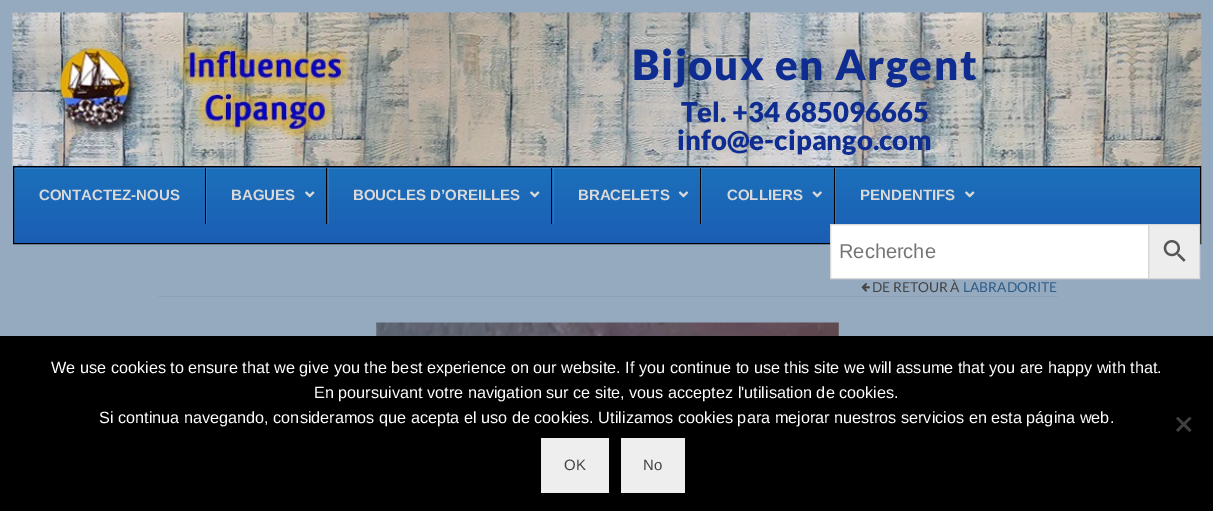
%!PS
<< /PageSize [1213 511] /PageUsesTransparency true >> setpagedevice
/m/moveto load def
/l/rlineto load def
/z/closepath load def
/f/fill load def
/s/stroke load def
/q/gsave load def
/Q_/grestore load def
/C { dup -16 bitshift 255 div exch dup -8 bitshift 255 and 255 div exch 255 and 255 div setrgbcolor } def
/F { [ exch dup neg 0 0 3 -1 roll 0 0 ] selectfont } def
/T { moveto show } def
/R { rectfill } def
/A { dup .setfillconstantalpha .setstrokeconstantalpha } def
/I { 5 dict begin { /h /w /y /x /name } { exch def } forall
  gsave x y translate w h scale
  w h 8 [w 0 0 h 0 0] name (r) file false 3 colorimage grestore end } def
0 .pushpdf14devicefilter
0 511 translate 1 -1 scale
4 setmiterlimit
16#95AABF C
0 0 1213 511 R
(1.rgb) 12 12 397 155 I
(2.rgb) 408 12 794 155 I
/Lato-Black 42 F
16#0F2D90 C
632 80 m 1.5 0 (Bijoux en Argent) ashow
/Lato-Black 27.5 F
(Tel. +34 685096665) 681 122 T
(info@e-cipango.com) 677 150 T
q 13 167 m 1188 0 l 0 1 l -1188 0 l z clip newpath
<< /ShadingType 2 /ColorSpace /DeviceRGB /Coords [607 92 607 168] /Extend [true true] /Function << /FunctionType 2 /Domain [0 1] /C0 [.106 .439 .729] /C1 [.11 .369 .71] /N 1 >> >> shfill Q_
q 14 168 m 1186 0 l 0 75 l -1186 0 l z clip newpath
<< /ShadingType 2 /ColorSpace /DeviceRGB /Coords [607 167 607 243] /Extend [true true] /Function << /FunctionType 2 /Domain [0 1] /C0 [.106 .439 .729] /C1 [.11 .369 .71] /N 1 >> >> shfill Q_
q
14 168 1186 75 rectclip
0.1 A
16#FFFFFF C
-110 44 m 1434 0 l 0 322 l -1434 0 l z 15 169 m 1186 0 l 0 75 l -1186 0 l z eofill
Q_
16#000000 C
13.5 166.5 1187 77 rectstroke
/LiberationSans-Bold 15 F
16#D9D9D9 C
(CONTACTEZ-NOUS) 39 200 T
0.1 A
16#FFFFFF C
206 168 1 56 R
1 A
16#000000 C
205 168 1 56 R
16#D9D9D9 C
(BAGUES) 231 200 T
(3.rgb) 305 191 10 7 I
0.1 A
16#FFFFFF C
328 168 1 56 R
1 A
16#000000 C
326 168 1 56 R
16#D9D9D9 C
(BOUCLES D’OREILLES) 353 200 T
(3.rgb) 530 191 10 7 I
0.1 A
16#FFFFFF C
553 168 1 56 R
1 A
16#000000 C
551 168 1 56 R
16#D9D9D9 C
(BRACELETS) 578 200 T
(4.rgb) 678 191 11 7 I
0.1 A
16#FFFFFF C
701 168 1 56 R
1 A
16#000000 C
700 168 1 56 R
16#D9D9D9 C
(COLLIERS) 727 200 T
(5.rgb) 812 191 10 7 I
0.1 A
16#FFFFFF C
835 168 1 56 R
1 A
16#000000 C
834 168 1 56 R
16#D9D9D9 C
(PENDENTIFS) 860 200 T
(3.rgb) 965 191 10 7 I
16#EDEDED C
1148.5 224.5 m 51 0 l 0 54 l -51 0 l z q f Q_
16#D8D8D8 C
s
16#FFFFFF C
830.5 224.5 m 318 0 l 0 54 l -318 0 l z q f Q_
16#D8D8D8 C
s
/LiberationSans-Regular 20 F
16#757575 C
(Recherche) 839 258 T
(6.rgb) 1163 240 23 22 I
16#8FA2B5 C
158 296 900 1 R
(7.rgb) 861 283 9 9 I
/Lato-Regular 13.75 F
16#444444 C
(DE RETOUR À) 872 292 T
16#2D5C88 C
(LABRADORITE) 963 292 T
(8.rgb) 376 322 463 14 I
16#000000 C
0 336 1213 175 R
/LiberationSans-Regular 16.25 F
16#FFFFFF C
(We use cookies to ensure that we give you the best experience on our website. If you continue to use this site we will assume that you are happy with that.) 51 373 T
(En poursuivant votre navigation sur ce site, vous acceptez l'utilisation de cookies.) 314 398 T
(Si continua navegando, consideramos que acepta el uso de cookies. Utilizamos cookies para mejorar nuestros servicios en esta página web.) 99 423 T
16#404040 C
1189.5 417 m 2 1.5 l -13.5 13.5 l -2 -2 l z f
1176 418.5 m 2 -1.5 l 13.5 13 l -2 2 l z f
16#EEEEEE C
541 438 68 55 R
/LiberationSans-Regular 15 F
16#444444 C
(OK) 564 470 T
16#EEEEEE C
621 438 64 55 R
16#444444 C
(No) 643 470 T
.poppdf14devicefilter showpage
